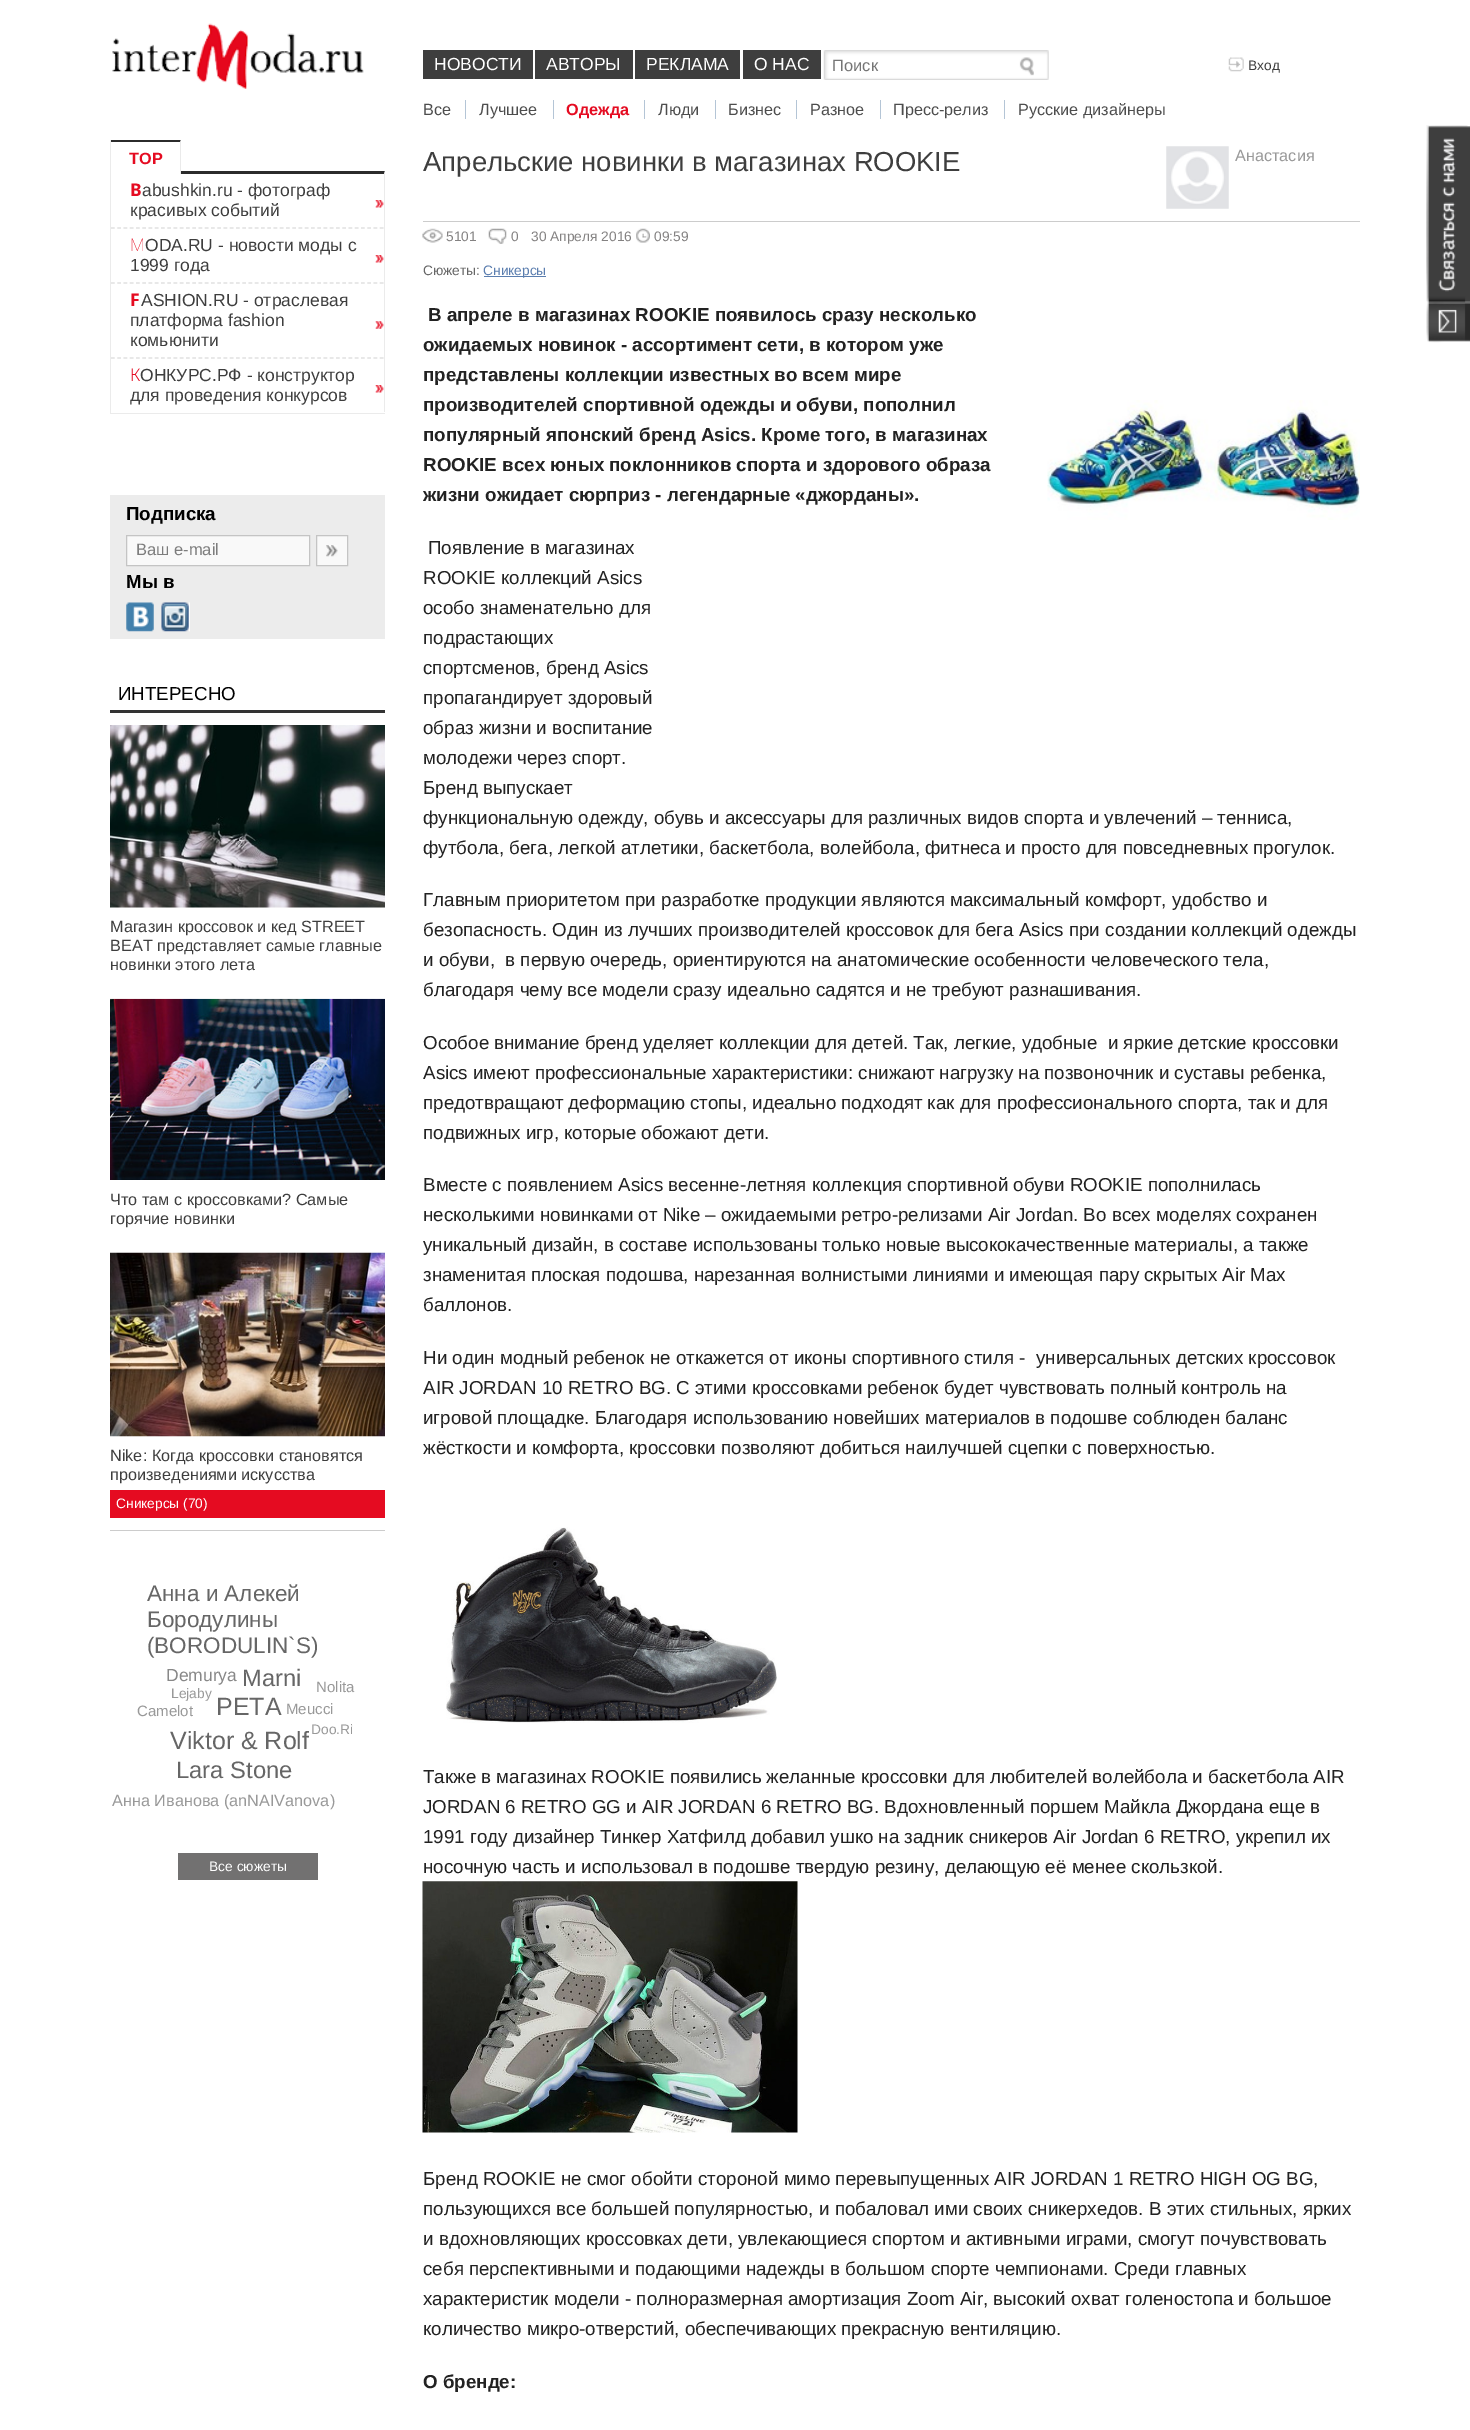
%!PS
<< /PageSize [1470 2430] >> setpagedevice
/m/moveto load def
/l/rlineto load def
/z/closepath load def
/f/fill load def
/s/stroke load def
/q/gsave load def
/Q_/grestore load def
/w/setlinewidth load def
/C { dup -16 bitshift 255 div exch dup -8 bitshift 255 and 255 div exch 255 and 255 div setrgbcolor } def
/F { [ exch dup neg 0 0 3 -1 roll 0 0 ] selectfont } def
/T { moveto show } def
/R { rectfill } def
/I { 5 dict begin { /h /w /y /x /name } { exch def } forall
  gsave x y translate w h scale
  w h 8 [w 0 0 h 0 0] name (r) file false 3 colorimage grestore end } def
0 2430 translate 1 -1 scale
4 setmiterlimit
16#FFFFFF C
0 0 1470 2430 R
(1.rgb) 112 23 252 66 I
16#3E3E3E C
423 50 110 29 R
/LiberationSans-Regular 17.5 F
16#FFFFFF C
(НОВОСТИ) 434 70 T
16#3E3E3E C
535 50 98 29 R
16#FFFFFF C
(АВТОРЫ) 546 70 T
16#3E3E3E C
635 50 105 29 R
16#FFFFFF C
(РЕКЛАМА) 646 70 T
16#3E3E3E C
743 50 78 29 R
16#FFFFFF C
(О НАС) 754 70 T
(2.rgb) 823 50 226 30 I
/LiberationSans-Regular 16.5 F
16#757575 C
(Поиск) 832 71 T
/LiberationSans-Regular 16.25 F
16#4D4D4D C
(Все) 423 115 T
16#B4C5D6 C
465 100 1 19 R
16#4D4D4D C
(Лучшее) 479 115 T
16#B4C5D6 C
553 100 1 19 R
/LiberationSans-Bold 16.25 F
16#E50B21 C
(Одежда) 566 115 T
16#B4C5D6 C
644 100 1 19 R
/LiberationSans-Regular 16.25 F
16#4D4D4D C
(Люди) 658 115 T
16#B4C5D6 C
715 100 1 19 R
16#4D4D4D C
(Бизнес) 728 115 T
16#B4C5D6 C
796 100 1 19 R
16#4D4D4D C
(Разное) 810 115 T
16#B4C5D6 C
880 100 1 19 R
16#4D4D4D C
(Пресс-релиз) 893 115 T
16#B4C5D6 C
1004 100 1 19 R
16#4D4D4D C
(Русские дизайнеры) 1018 115 T
(3.rgb) 1228 57 16 15 I
/LiberationSans-Regular 13.75 F
16#3E3E3E C
(Вход) 1248 70 T
16#EBEBEB C
110 413 275 1 R
110 140 1 274 R
16#2B2B2B C
111 171 m 274 0 l -1 3 l -273 0 l z f
16#FFFFFF C
111 171 70 3 R
16#2B2B2B C
111 140 m 70 0 l -1 2 l -69 0 l z f
16#EAEAEA C
181 140 m 0 34 l -1 0 l 0 -31.5 l z f
/LiberationSans-Bold 16.25 F
16#E50B21 C
(TOP) 129 164 T
16#EBEBEB C
385 171 m 0 241 l -1 0 l 0 -238 l z f
(4.rgb) 375 200 9 8 I
/NotoSans-Bold 17.5 F
16#E50B21 C
(B) 130 196 T
/LiberationSans-Regular 17.5 F
16#3E3E3E C
(abushkin.ru - фотограф) 142 196 T
(красивых событий) 130 216 T
16#E0E0E0 C
1.2 w
[3.75 2.5] 0 setdash
111 228 m 273 0 l s
(4.rgb) 375 255 9 8 I
/NotoSans-Thin 17.5 F
16#E50B21 C
(M) 130 251 T
/LiberationSans-Regular 17.5 F
16#3E3E3E C
(ODA.RU - новости моды с) 145 251 T
(1999 года) 130 271 T
16#E0E0E0 C
111 283 m 273 0 l s
(5.rgb) 375 321 9 8 I
/NotoSans-Bold 17.5 F
16#E50B21 C
(F) 130 306 T
/LiberationSans-Regular 17.5 F
16#3E3E3E C
(ASHION.RU - отраслевая) 141 306 T
(платформа fashion) 130 326 T
(комьюнити) 130 346 T
16#E0E0E0 C
111 358 m 273 0 l s
(4.rgb) 375 385 9 8 I
/NotoSans-Light 17.5 F
16#E50B21 C
(К) 130 381 T
/LiberationSans-Regular 17.5 F
16#3E3E3E C
(ОНКУРС.РФ - конструктор) 140 381 T
(для проведения конкурсов) 130 401 T
16#ECECEC C
110 495 275 144 R
/LiberationSans-Bold 18.75 F
16#000000 C
(Подписка) 126 520 T
16#F9F9F9 C
126.5 535.5 m 183 0 l 0 30 l -183 0 l z q f Q_
16#C4C4C4 C
1 w
[] 0 setdash
s
/LiberationSans-Regular 16.5 F
16#7D7D7D C
(Ваш e-mail) 136 555 T
16#F9F9F9 C
317 536 30 29 R
(6.rgb) 326 545 12 12 I
16#C4C4C4 C
316.5 535.5 31 30 rectstroke
/LiberationSans-Bold 18.75 F
16#000000 C
(Мы в) 126 588 T
(7.rgb) 126 602 28 30 I
(8.rgb) 161 602 29 30 I
16#333333 C
110 710 275 3 R
/LiberationSans-Regular 18.75 F
16#000000 C
(ИНТЕРЕСНО) 118 700 T
(9.rgb) 110 725 275 183 I
/LiberationSans-Regular 16.25 F
16#3E3E3E C
(Магазин кроссовок и кед STREET) 110 932 T
(BEAT представляет самые главные) 110 951 T
(новинки этого лета) 110 970 T
(10.rgb) 110 998 275 182 I
(Что там с кроссовками? Самые) 110 1205 T
(горячие новинки) 110 1224 T
(11.rgb) 110 1252 275 185 I
(Nike: Когда кроссовки становятся) 110 1461 T
(произведениями искусства) 110 1480 T
16#E50B21 C
110 1490 275 28 R
/LiberationSans-Regular 13.75 F
16#FFFFFF C
(Сникерсы \(70\)) 116 1508 T
16#CCCCCC C
110 1530 275 1 R
/LiberationSans-Regular 22.5 F
16#666666 C
(Анна и Алекей) 147 1601 T
(Бородулины) 147 1627 T
(\(BORODULIN`S\)) 147 1653 T
/LiberationSans-Regular 17.5 F
16#888888 C
(Demurya) 166 1681 T
/LiberationSans-Regular 23.75 F
16#666666 C
(Marni) 242 1686 T
/LiberationSans-Regular 15 F
16#999999 C
(Nolita) 316 1692 T
/LiberationSans-Regular 13.75 F
(Lejaby) 171 1698 T
/LiberationSans-Regular 15 F
(Camelot) 137 1716 T
/LiberationSans-Regular 25 F
16#666666 C
(PETA) 216 1715 T
/LiberationSans-Regular 15 F
16#999999 C
(Meucci) 286 1714 T
/LiberationSans-Regular 25 F
16#666666 C
(Viktor & Rolf) 170 1749 T
/LiberationSans-Regular 13.75 F
16#999999 C
(Doo.Ri) 311 1734 T
/LiberationSans-Regular 23.75 F
16#666666 C
(Lara Stone) 176 1778 T
/LiberationSans-Regular 16.25 F
16#999999 C
(Анна Иванова \(anNAIVanova\)) 112 1806 T
16#727171 C
178 1853 140 27 R
/LiberationSans-Regular 13.75 F
16#FFFFFF C
(Все сюжеты) 209 1871 T
/LiberationSans-Regular 27.5 F
16#3E3E3E C
(Апрельские новинки в магазинах ROOKIE) 423 171 T
(12.rgb) 1166 146 63 63 I
/LiberationSans-Regular 16.25 F
16#999999 C
(Анастасия) 1235 161 T
16#CCCCCC C
423 221 937 1 R
(13.rgb) 422 228 21 15 I
/LiberationSans-Regular 13.75 F
16#848282 C
(5101) 446 241 T
(14.rgb) 488 228 19 16 I
(0) 511 241 T
(30 Апреля 2016) 531 241 T
(15.rgb) 636 228 14 15 I
(09:59) 654 241 T
16#666666 C
(Сюжеты:) 423 275 T
16#5B7EAF C
484 276 62 1 R
(Сникерсы) 483 275 T
/LiberationSans-Bold 18.75 F
16#222222 C
(В апреле в магазинах ROOKIE появилось сразу несколько) 428 321 T
(ожидаемых новинок - ассортимент сети, в котором уже) 423 351 T
(представлены коллекции известных во всем мире) 423 381 T
(производителей спортивной одежды и обуви, пополнил) 423 411 T
(популярный японский бренд Asics. Кроме того, в магазинах) 423 441 T
(ROOKIE всех юных поклонников спорта и здорового образа) 423 471 T
(жизни ожидает сюрприз - легендарные «джорданы».) 423 501 T
/LiberationSans-Regular 18.75 F
(Появление в магазинах) 428 554 T
(ROOKIE коллекций Asics) 423 584 T
(особо знаменательно для) 423 614 T
(подрастающих) 423 644 T
(спортсменов, бренд Asics) 423 674 T
(пропагандирует здоровый) 423 704 T
(образ жизни и воспитание) 423 734 T
(молодежи через спорт.) 423 764 T
(Бренд выпускает) 423 794 T
(функциональную одежду, обувь и аксессуары для различных видов спорта и увлечений – тенниса,) 423 824 T
(футбола, бега, легкой атлетики, баскетбола, волейбола, фитнеса и просто для повседневных прогулок.) 423 854 T
(Главным приоритетом при разработке продукции являются максимальный комфорт, удобство и) 423 906 T
(безопасность. Один из лучших производителей кроссовок для бега Asics при создании коллекций одежды) 423 936 T
(и обуви,  в первую очередь, ориентируются на анатомические особенности человеческого тела,) 423 966 T
(благодаря чему все модели сразу идеально садятся и не требуют разнашивания.) 423 996 T
(Особое внимание бренд уделяет коллекции для детей. Так, легкие, удобные  и яркие детские кроссовки) 423 1049 T
(Asics имеют профессиональные характеристики: снижают нагрузку на позвоночник и суставы ребенка,) 423 1079 T
(предотвращают деформацию стопы, идеально подходят как для профессионального спорта, так и для) 423 1109 T
(подвижных игр, которые обожают дети.) 423 1139 T
(Вместе с появлением Asics весенне-летняя коллекция спортивной обуви ROOKIE пополнилась) 423 1191 T
(несколькими новинками от Nike – ожидаемыми ретро-релизами Air Jordan. Во всех моделях сохранен) 423 1221 T
(уникальный дизайн, в составе использованы только новые высококачественные материалы, а также) 423 1251 T
(знаменитая плоская подошва, нарезанная волнистыми линиями и имеющая пару скрытых Air Max) 423 1281 T
(баллонов.) 423 1311 T
(Ни один модный ребенок не откажется от иконы спортивного стиля -  универсальных детских кроссовок) 423 1364 T
(AIR JORDAN 10 RETRO BG. С этими кроссовками ребенок будет чувствовать полный контроль на) 423 1394 T
(игровой площадке. Благодаря использованию новейших материалов в подошве соблюден баланс) 423 1424 T
(жёсткости и комфорта, кроссовки позволяют добиться наилучшей сцепки с поверхностью.) 423 1454 T
(16.rgb) 446 1527 331 196 I
(Также в магазинах ROOKIE появились желанные кроссовки для любителей волейбола и баскетбола AIR) 423 1783 T
(JORDAN 6 RETRO GG и AIR JORDAN 6 RETRO BG. Вдохновленный поршем Майкла Джордана еще в) 423 1813 T
(1991 году дизайнер Тинкер Хатфилд добавил ушко на задник сникеров Air Jordan 6 RETRO, укрепил их) 423 1843 T
(носочную часть и использовал в подошве твердую резину, делающую её менее скользкой.) 423 1873 T
(17.rgb) 422 1881 376 252 I
(Бренд ROOKIE не смог обойти стороной мимо перевыпущенных AIR JORDAN 1 RETRO HIGH OG BG,) 423 2185 T
(пользующихся все большей популярностью, и побаловал ими своих сникерхедов. В этих стильных, ярких) 423 2215 T
(и вдохновляющих кроссовках дети, увлекающиеся спортом и активными играми, смогут почувствовать) 423 2245 T
(себя перспективными и подающими надежды в большом спорте чемпионами. Среди главных) 423 2275 T
(характеристик модели - полноразмерная амортизация Zoom Air, высокий охват голеностопа и большое) 423 2305 T
(количество микро-отверстий, обеспечивающих прекрасную вентиляцию.) 423 2335 T
/LiberationSans-Bold 18.75 F
(О бренде:) 423 2388 T
(18.rgb) 1047 400 313 120 I
(19.rgb) 1426 125 44 218 I
showpage
